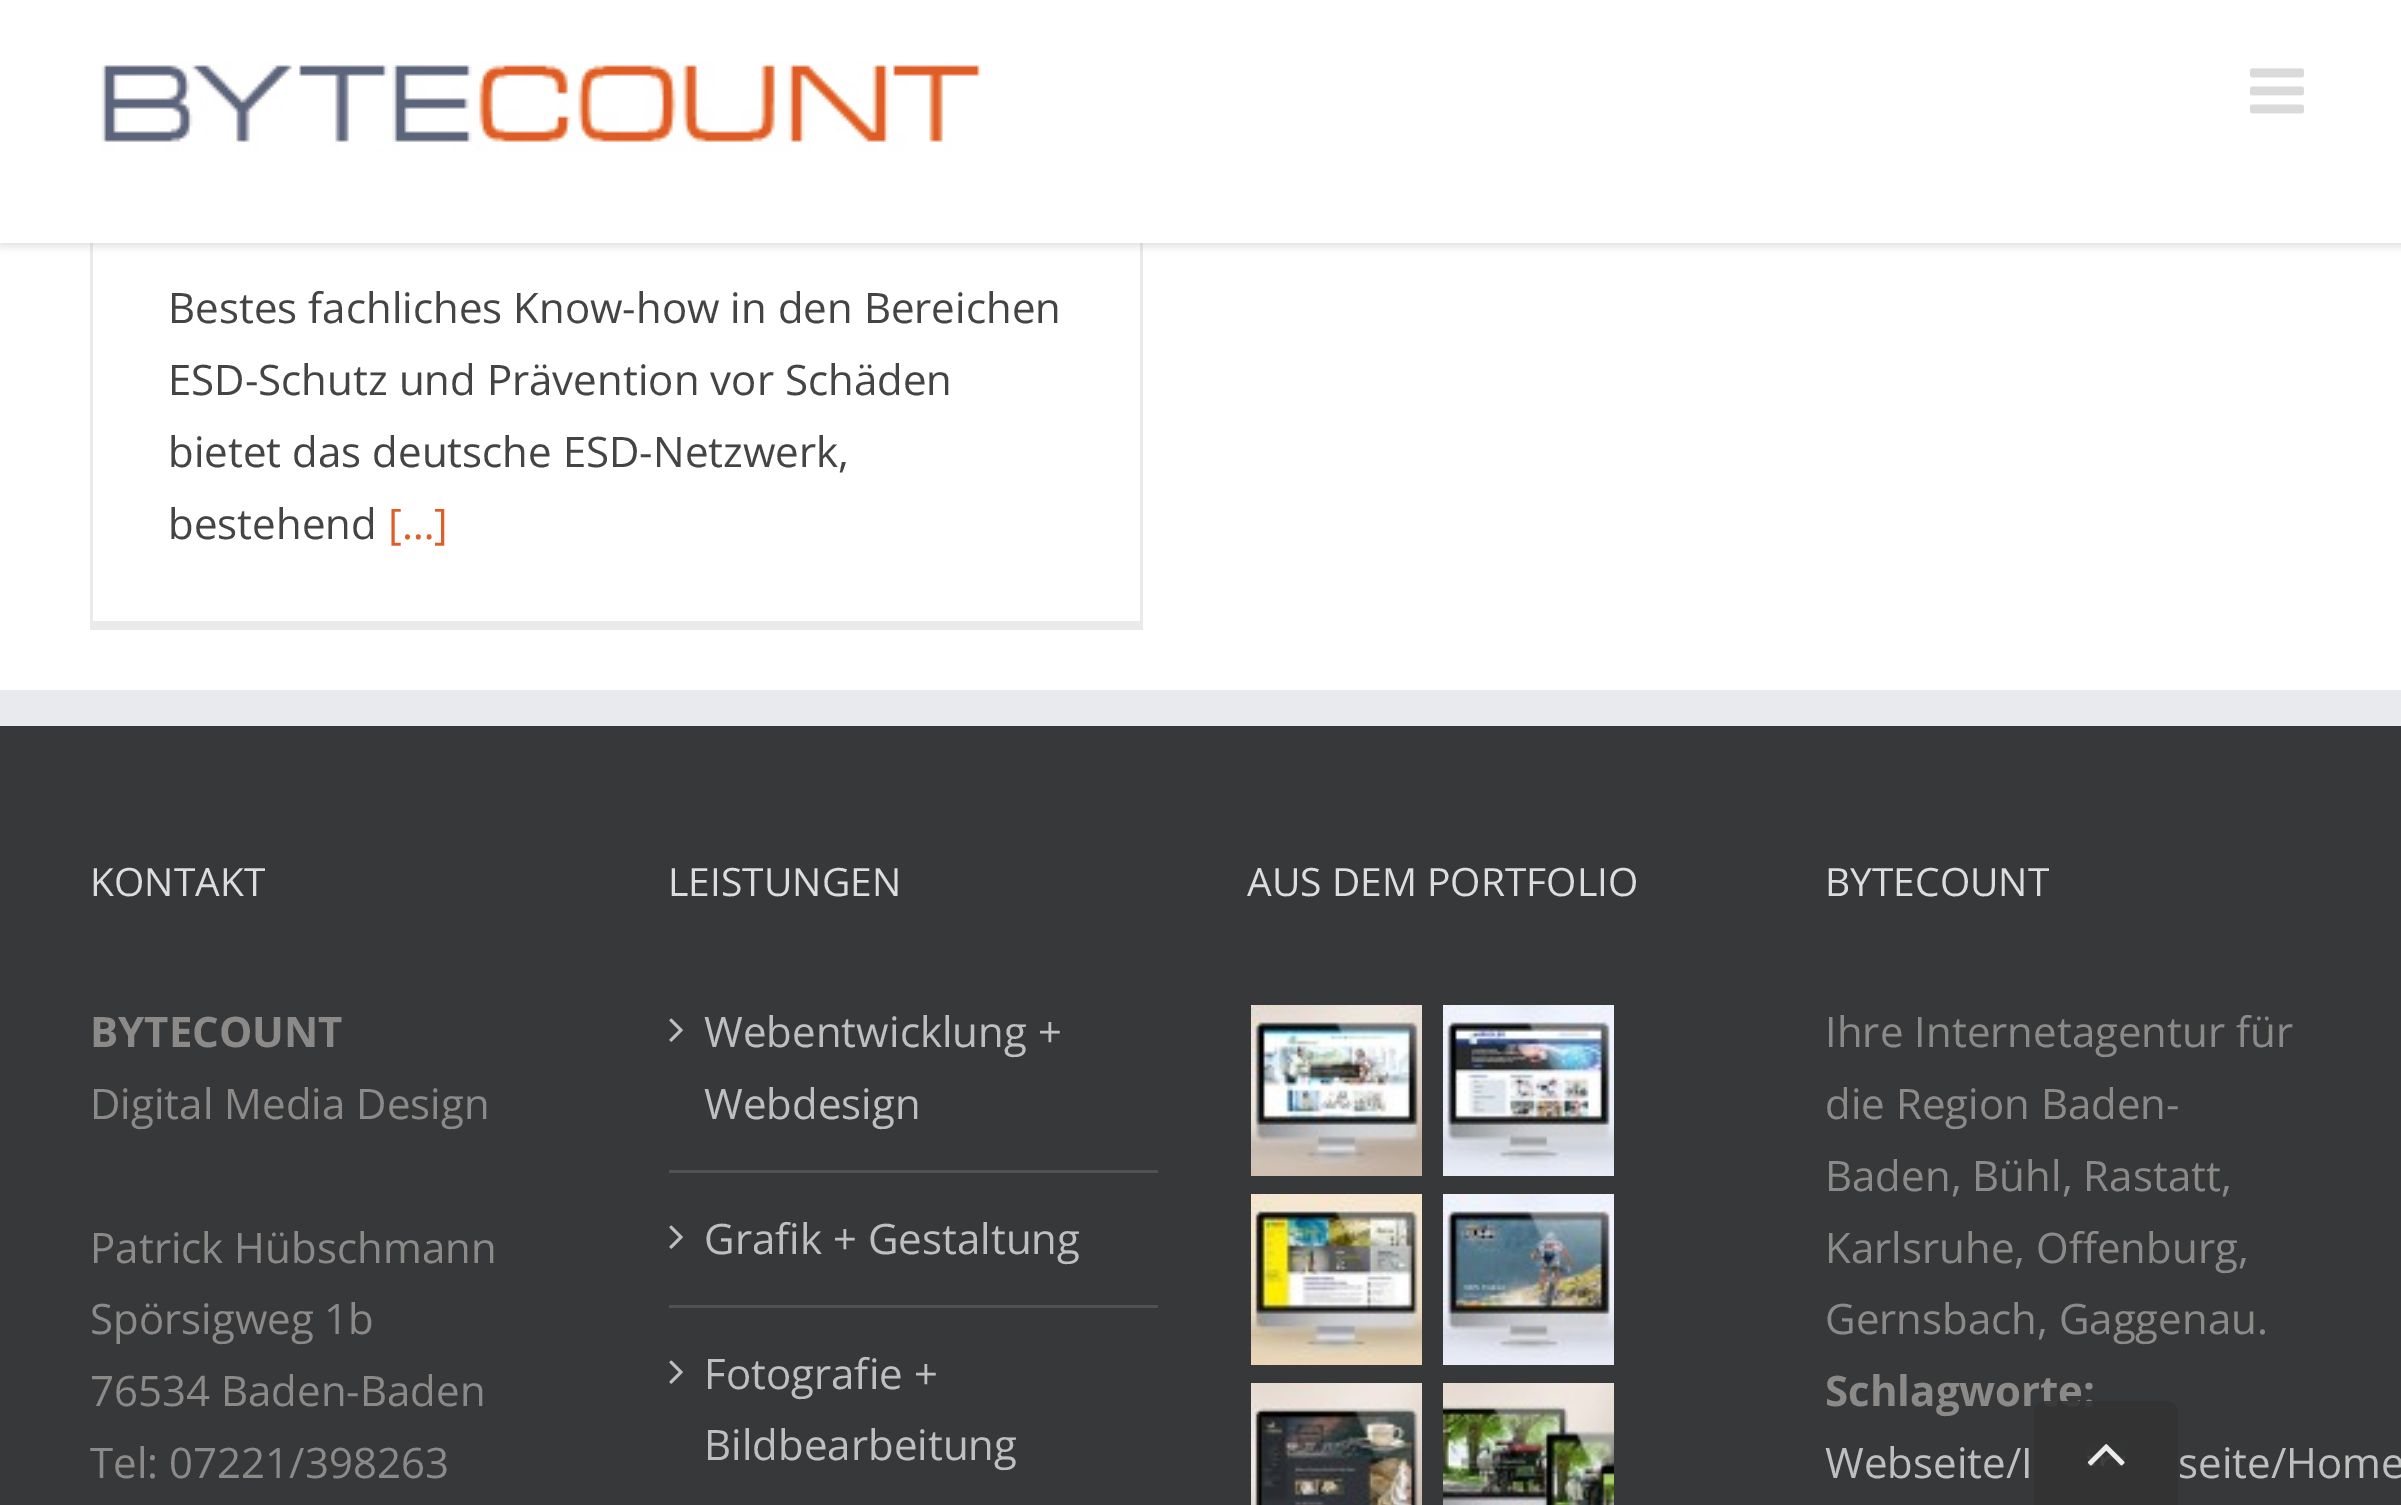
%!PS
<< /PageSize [2401 1505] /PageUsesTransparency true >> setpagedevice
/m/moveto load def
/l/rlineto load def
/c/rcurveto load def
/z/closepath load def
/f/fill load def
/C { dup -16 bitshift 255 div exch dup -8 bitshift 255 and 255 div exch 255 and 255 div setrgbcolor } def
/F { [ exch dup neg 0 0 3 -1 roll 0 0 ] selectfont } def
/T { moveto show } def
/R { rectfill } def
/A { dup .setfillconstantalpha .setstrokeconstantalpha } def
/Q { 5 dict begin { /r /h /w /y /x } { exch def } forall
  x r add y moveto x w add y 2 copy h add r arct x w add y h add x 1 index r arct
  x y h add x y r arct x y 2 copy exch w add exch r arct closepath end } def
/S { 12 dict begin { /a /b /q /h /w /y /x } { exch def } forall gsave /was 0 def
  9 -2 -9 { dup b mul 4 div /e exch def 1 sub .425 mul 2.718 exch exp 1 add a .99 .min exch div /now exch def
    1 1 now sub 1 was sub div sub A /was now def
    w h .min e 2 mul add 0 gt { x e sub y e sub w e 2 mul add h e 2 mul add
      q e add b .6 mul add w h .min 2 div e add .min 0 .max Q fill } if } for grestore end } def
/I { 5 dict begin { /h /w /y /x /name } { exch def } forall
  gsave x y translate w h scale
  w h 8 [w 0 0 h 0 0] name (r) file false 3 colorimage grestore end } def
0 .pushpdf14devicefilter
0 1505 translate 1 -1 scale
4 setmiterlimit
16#FFFFFF C
0 0 2401 1505 R
16#EBEAEA C
1140 243 3 378 R
90 243 3 387 R
16#000000 C
0 3 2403 243 0 4.5 .12 S
16#FFFFFF C
0 0 2401 243 R
(1.rgb) 101 60 881 92 I
(2.rgb) 2250 68 54 46 I
16#EBEAEA C
93 621 1050 9 R
/OpenSans-Regular 42 F
16#444444 C
(Bestes fachliches Know-how in den Bereichen) 168 323 T
(ESD-Schutz und Prävention vor Schäden) 168 395 T
(bietet das deutsche ESD-Netzwerk,) 168 467 T
(bestehend) 168 539 T
16#DF5E27 C
([…]) 388 539 T
16#363839 C
0 726 2401 779 R
16#E9EAEE C
0 690 2401 36 R
/OpenSans-Regular 39 F
16#DDDDDD C
(KONTAKT) 90 896 T
/OpenSans-Bold 42 F
16#8C8989 C
(BYTECOUNT) 90 1047 T
/OpenSans-Regular 42 F
(Digital Media Design) 90 1119 T
(Patrick Hübschmann) 90 1263 T
(Spörsigweg 1b) 90 1334 T
(76534 Baden-Baden) 90 1406 T
(Tel: 07221/398263) 90 1478 T
/OpenSans-Regular 39 F
16#DDDDDD C
(LEISTUNGEN) 668 896 T
16#505152 C
669 1170 489 3 R
(3.rgb) 669 1018 14 24 I
/OpenSans-Regular 42 F
16#BFBFBF C
(Webentwicklung +) 704 1047 T
(Webdesign) 704 1119 T
16#505152 C
669 1305 489 3 R
(3.rgb) 669 1225 14 24 I
16#BFBFBF C
(Grafik + Gestaltung) 704 1254 T
(3.rgb) 669 1360 14 24 I
(Fotografie +) 704 1389 T
(Bildbearbeitung) 704 1460 T
/OpenSans-Regular 39 F
16#DDDDDD C
(AUS DEM PORTFOLIO) 1247 896 T
(4.rgb) 1251 1005 171 171 I
(5.rgb) 1443 1005 171 171 I
(6.rgb) 1251 1194 171 171 I
(7.rgb) 1443 1194 171 171 I
(8.rgb) 1251 1383 171 122 I
(9.rgb) 1443 1383 171 122 I
(BYTECOUNT) 1825 896 T
/OpenSans-Regular 42 F
16#8C8989 C
(Ihre Internetagentur für) 1825 1047 T
(die Region Baden-) 1825 1119 T
(Baden, Bühl, Rastatt,) 1825 1191 T
(Karlsruhe, Offenburg,) 1825 1263 T
(Gernsbach, Gaggenau.) 1825 1334 T
/OpenSans-Bold 42 F
(Schlagworte:) 1825 1406 T
/OpenSans-Regular 42 F
16#BFBFBF C
(Webseite/I) 1825 1478 T
(seite/Home) 2178 1478 T
0.9 A
16#333333 C
2046 1401 m 120 0 l 6.5 0 12 5.5 12 12 c 0 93 l -144 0 l 0 -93 l 0 -6.5 5.5 -12 12 -12 c z f
1 A
(10.rgb) 2087 1444 38 22 I
.poppdf14devicefilter showpage
